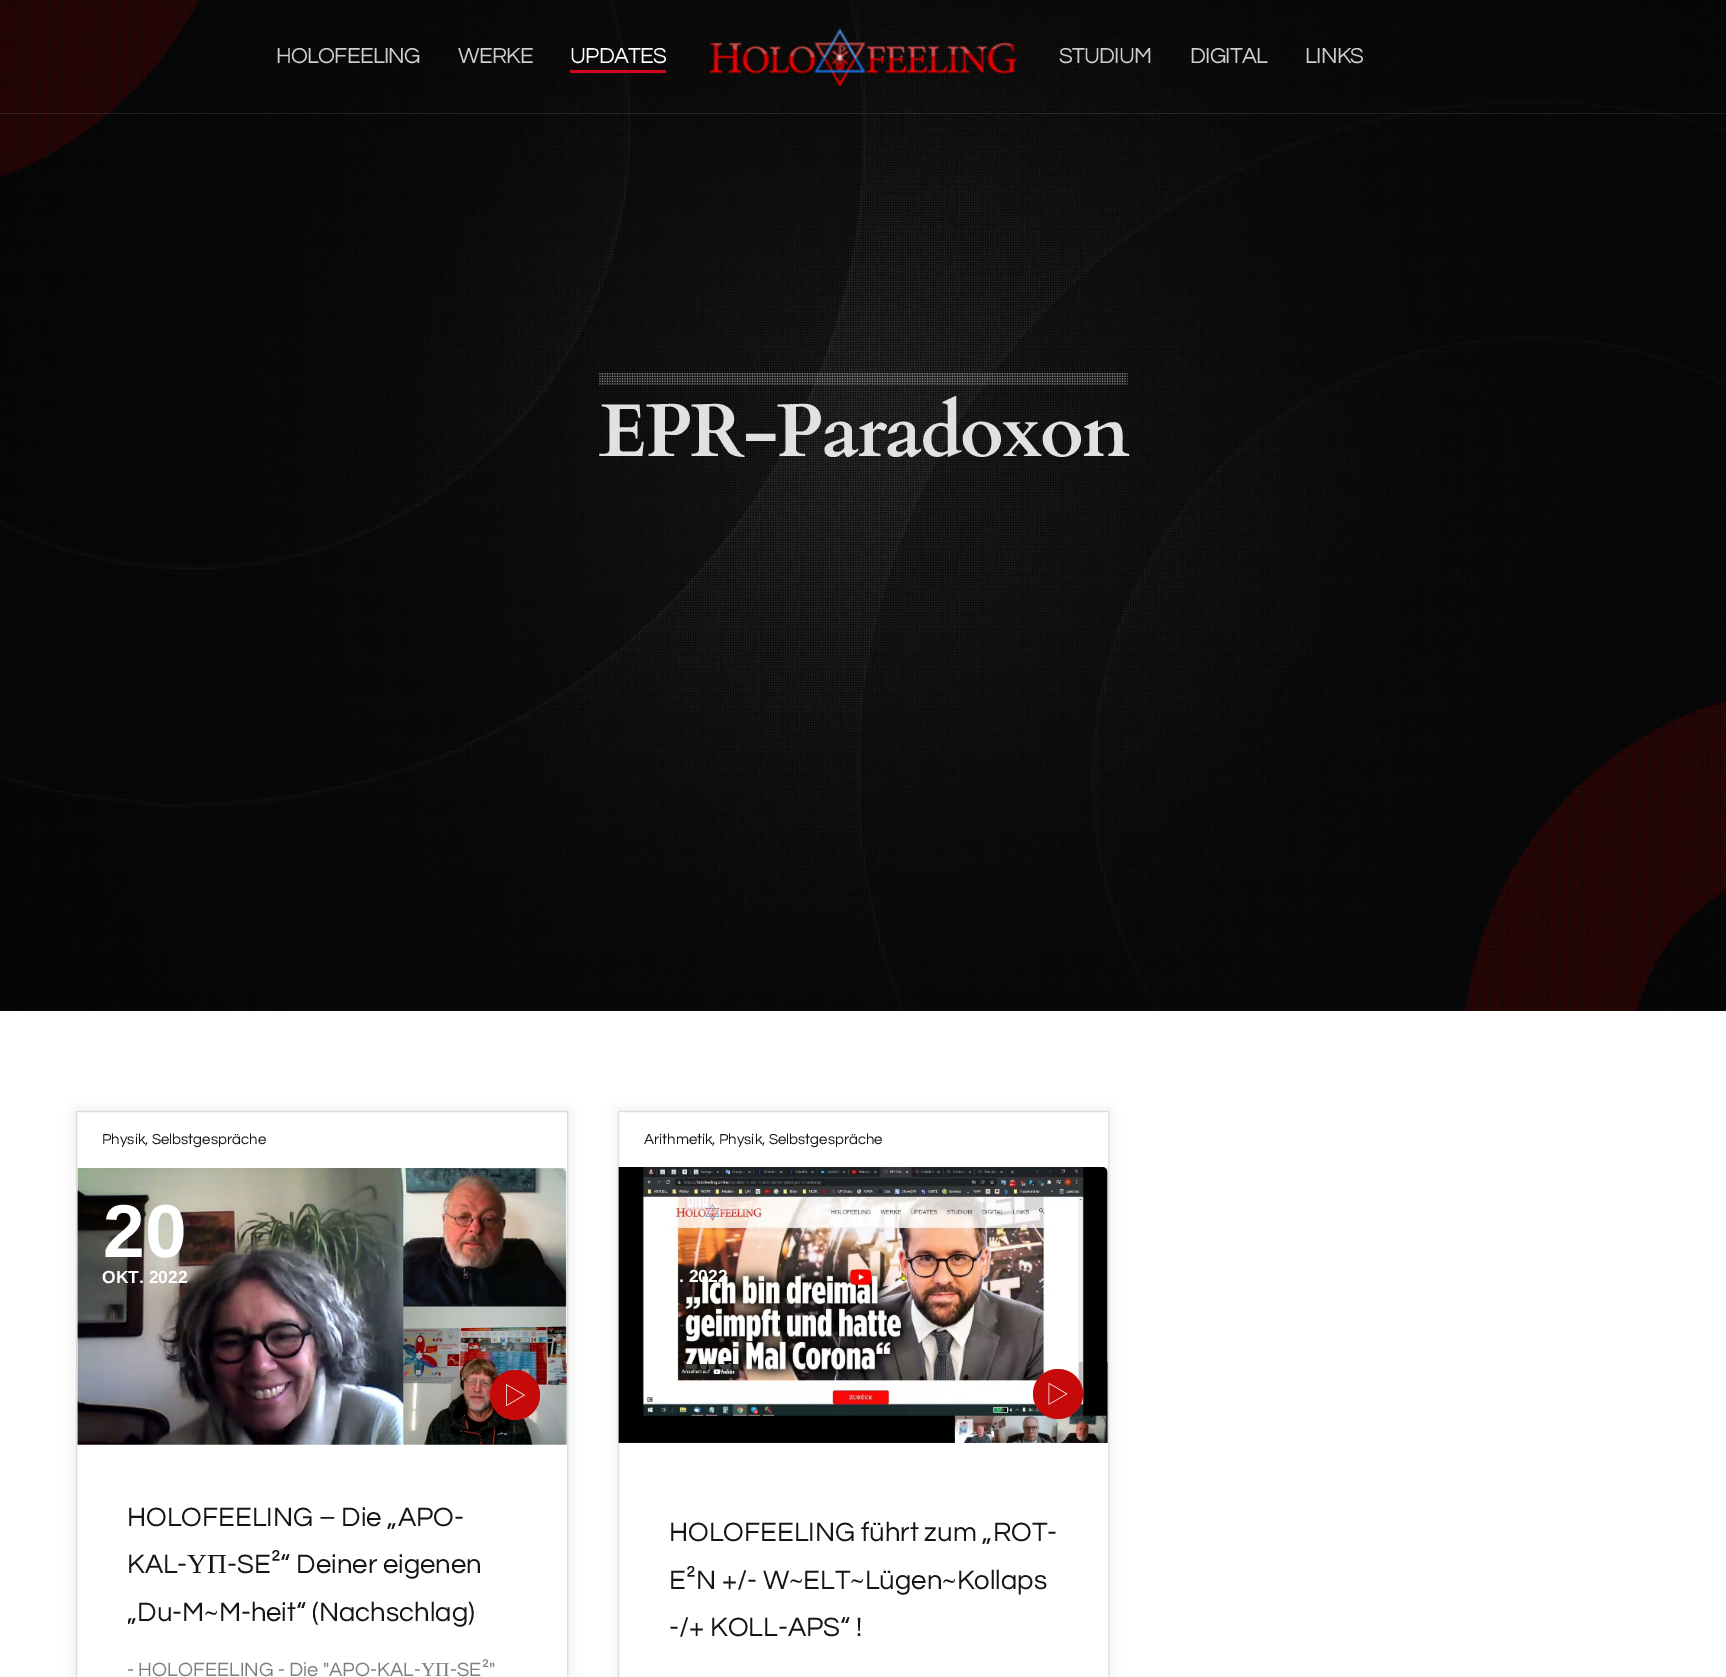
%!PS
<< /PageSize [1726 1677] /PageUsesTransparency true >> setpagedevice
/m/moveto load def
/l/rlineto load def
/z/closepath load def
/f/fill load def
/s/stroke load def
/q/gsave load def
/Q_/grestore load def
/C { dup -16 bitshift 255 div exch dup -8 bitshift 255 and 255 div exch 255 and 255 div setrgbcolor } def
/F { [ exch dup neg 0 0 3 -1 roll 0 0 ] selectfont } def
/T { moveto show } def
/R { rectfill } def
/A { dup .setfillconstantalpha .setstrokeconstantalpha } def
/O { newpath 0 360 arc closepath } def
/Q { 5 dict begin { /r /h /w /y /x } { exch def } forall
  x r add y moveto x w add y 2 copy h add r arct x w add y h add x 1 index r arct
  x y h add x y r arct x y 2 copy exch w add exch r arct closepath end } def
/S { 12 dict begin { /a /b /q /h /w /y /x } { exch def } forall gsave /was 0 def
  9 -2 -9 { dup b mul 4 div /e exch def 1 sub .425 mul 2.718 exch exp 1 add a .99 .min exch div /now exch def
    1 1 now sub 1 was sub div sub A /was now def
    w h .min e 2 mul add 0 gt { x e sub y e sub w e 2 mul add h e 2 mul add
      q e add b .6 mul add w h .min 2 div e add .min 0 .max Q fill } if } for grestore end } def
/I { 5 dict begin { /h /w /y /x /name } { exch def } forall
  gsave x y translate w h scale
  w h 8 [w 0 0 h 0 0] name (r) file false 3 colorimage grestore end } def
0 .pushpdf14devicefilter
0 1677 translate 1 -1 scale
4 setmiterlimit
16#FFFFFF C
0 0 1726 1677 R
(2.rgb) 0 0 1726 1011 I
(3.rgb) 0 0 1726 1011 I
0.1 A
0 113 1726 1 R
/Questrial-Regular 22.5 F
1 A
16#CECECE C
276 63 m -.75 0 (HOLOFEELING) ashow
458 63 m -.75 0 (WERKE) ashow
16#FFFFFF C
570 63 m -.75 0 (UPDATES) ashow
16#D5051F C
570 70 96 3 R
(1.rgb) 710 28 307 59 I
16#CECECE C
1059 63 m -.75 0 (STUDIUM) ashow
1190 63 m -.75 0 (DIGITAL) ashow
1305 63 m -.75 0 (LINKS) ashow
(4.rgb) 598 373 530 12 I
/Cardo-Bold 75 F
16#E1E1E1 C
599 456 m -2.25 0 (EPR-Paradoxon) ashow
16#000000 C
76 1111 492 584 0 6 .09 S
16#FFFFFF C
76.5 1111.5 m 491 0 l 0 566 l -491 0 l z q f Q_
16#DDDDDD C
s
465 1168 101 1 R
/Questrial-Regular 15 F
16#151515 C
(Physik, Selbstgespräche) 102 1144 T
(5.rgb) 77 1168 490 277 I
16#C60909 C
515 1395 25 O f
(6.rgb) 506 1384 19 22 I
/LiberationSans-Bold 75 F
16#FFFFFF C
(20) 103 1257 T
/LiberationSans-Bold 17.5 F
(OKT. 2022) 102 1283 T
/Questrial-Regular 27.5 F
16#151515 C
(HOLOFEELING – Die „APO-) 127 1526 T
(KAL-) 127 1573 T
/LiberationSerif-Regular 27.5 F
(ΥΠ) 187 1573 T
/Questrial-Regular 27.5 F
(-SE²“ Deiner eigenen) 227 1573 T
q
128 1495 388 143 rectclip
(„Du-M~M-heit“ \(Nachschlag\)) 127 1621 T
Q_
/Questrial-Regular 20 F
16#7D7D7D C
(- HOLOFEELING - Die "APO-KAL-) 127 1676 T
/LiberationSerif-Regular 20 F
(ΥΠ) 421 1676 T
/Questrial-Regular 20 F
(-SE²") 450 1676 T
16#000000 C
618 1111 491 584 0 6 .09 S
16#FFFFFF C
618.5 1111.5 m 490 0 l 0 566 l -490 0 l z q f Q_
16#DDDDDD C
s
/Questrial-Regular 15 F
16#151515 C
(Arithmetik, Physik, Selbstgespräche) 644 1144 T
(7.rgb) 618 1167 490 276 I
16#C60909 C
1058 1394 25 O f
(8.rgb) 1048 1383 20 22 I
/LiberationSans-Bold 17.5 F
16#FFFFFF C
(. 2022) 679 1282 T
/Questrial-Regular 27.5 F
16#151515 C
(HOLOFEELING führt zum „ROT-) 669 1541 T
(E²N +/- W~ELT~Lügen~Kollaps) 669 1589 T
(-/+ KOLL-APS“ !) 669 1636 T
.poppdf14devicefilter showpage
